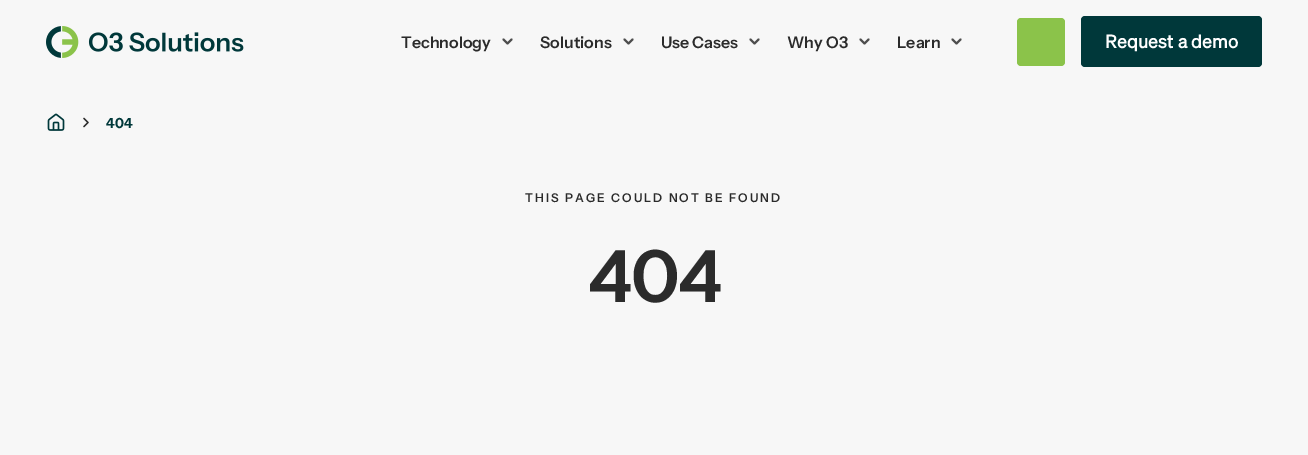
%!PS
<< /PageSize [1308 455] >> setpagedevice
/m/moveto load def
/l/rlineto load def
/f/fill load def
/s/stroke load def
/w/setlinewidth load def
/C { dup -16 bitshift 255 div exch dup -8 bitshift 255 and 255 div exch 255 and 255 div setrgbcolor } def
/F { [ exch dup neg 0 0 3 -1 roll 0 0 ] selectfont } def
/T { moveto show } def
/R { rectfill } def
/Q { 5 dict begin { /r /h /w /y /x } { exch def } forall
  x r add y moveto x w add y 2 copy h add r arct x w add y h add x 1 index r arct
  x y h add x y r arct x y 2 copy exch w add exch r arct closepath end } def
/I { 5 dict begin { /h /w /y /x /name } { exch def } forall
  gsave x y translate w h scale
  w h 8 [w 0 0 h 0 0] name (r) file false 3 colorimage grestore end } def
0 455 translate 1 -1 scale
4 setmiterlimit
16#F7F7F7 C
0 0 1308 455 R
(1.rgb) 46 26 198 32 I
/InstrumentSans-SemiBold 16 F
16#2B2B2B C
(Technology) 401 48 T
16#4D4D4D C
2 w
1 setlinecap
1 setlinejoin
503.5 39.5 m 4 4 l 4 -4 l s
16#2B2B2B C
(Solutions) 540 48 T
16#4D4D4D C
624.5 39.5 m 4 4 l 4 -4 l s
16#2B2B2B C
(Use Cases) 661 48 T
16#4D4D4D C
750.5 39.5 m 4 4 l 4 -4 l s
16#2B2B2B C
(Why O3) 787 48 T
16#4D4D4D C
860.5 39.5 m 4 4 l 4 -4 l s
16#2B2B2B C
(Learn) 897 48 T
16#4D4D4D C
952.5 39.5 m 4 4 l 4 -4 l s
16#8BC34A C
1017 18 48 48 4 Q f
16#00383A C
1081 16 181 51 4 Q f
/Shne-Bold 18 F
16#FFFFFF C
1105 48 m .25 0 (Request a demo) ashow
(2.rgb) 47 113 18 18 I
16#2B2B2B C
1.3 w
84 126.5 m 4 -4 l -4 -4 l s
/Shne-SemiBold 14 F
16#00383A C
(404) 106 128 T
/InstrumentSans-SemiBold 12 F
16#2B2B2B C
525 202 m 2.05 0 (THIS PAGE COULD NOT BE FOUND) ashow
/InstrumentSans-SemiBold 72 F
588 302 m -1.5 0 (404) ashow
showpage
